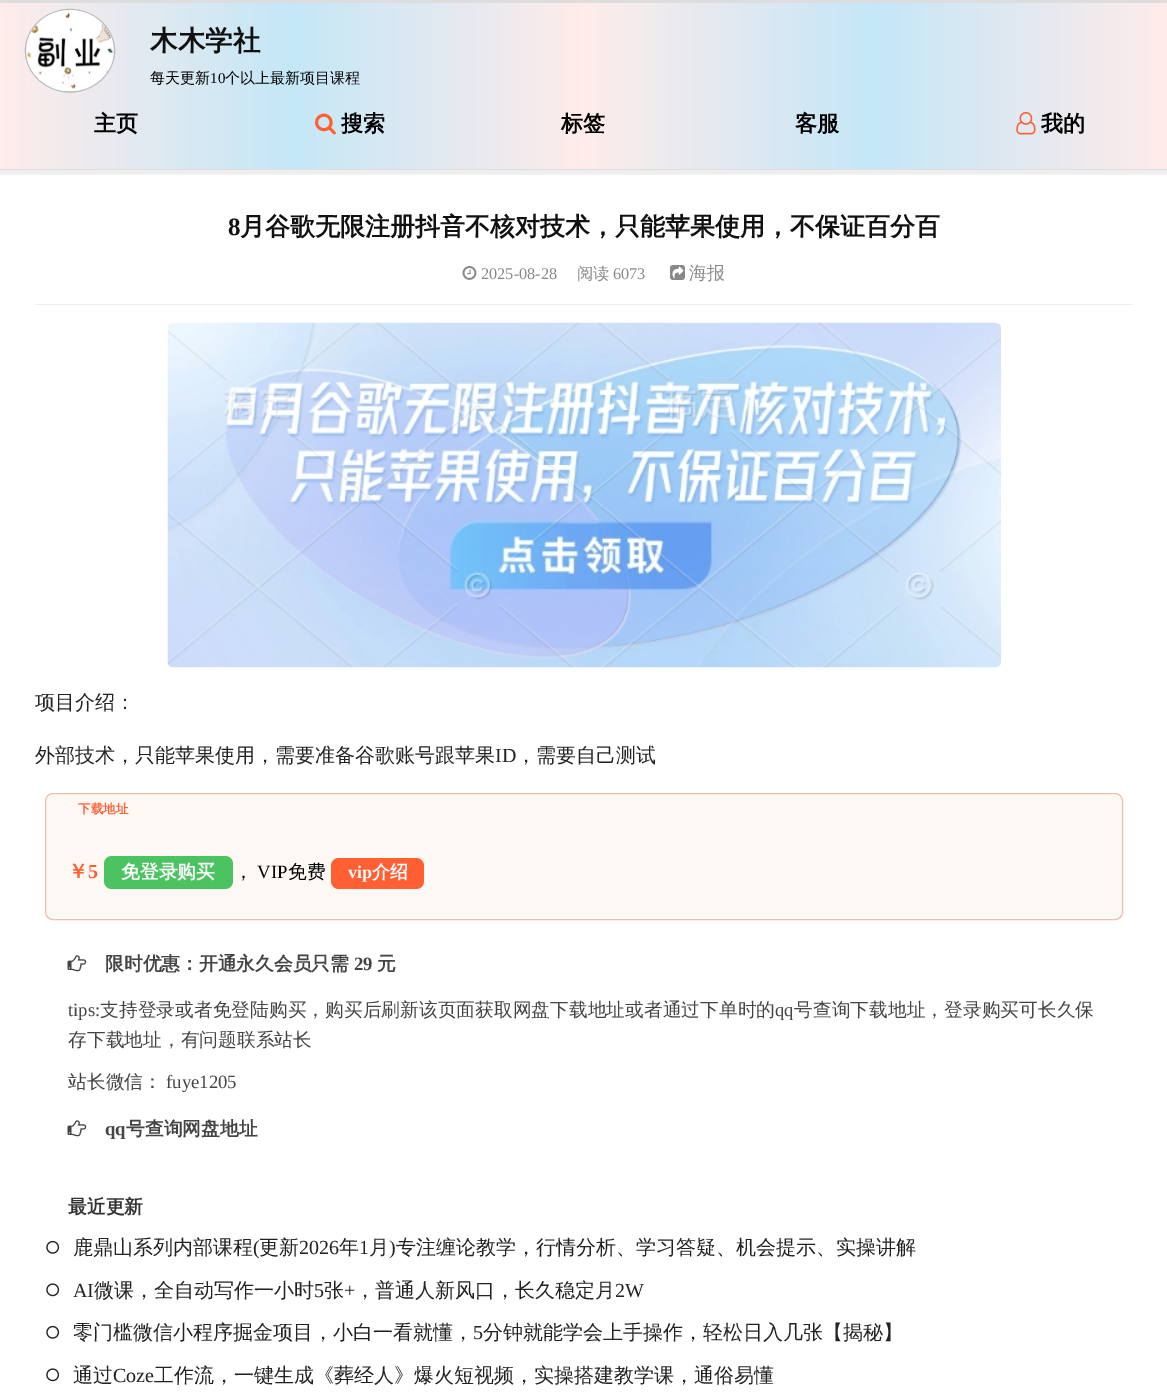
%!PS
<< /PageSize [1167 1396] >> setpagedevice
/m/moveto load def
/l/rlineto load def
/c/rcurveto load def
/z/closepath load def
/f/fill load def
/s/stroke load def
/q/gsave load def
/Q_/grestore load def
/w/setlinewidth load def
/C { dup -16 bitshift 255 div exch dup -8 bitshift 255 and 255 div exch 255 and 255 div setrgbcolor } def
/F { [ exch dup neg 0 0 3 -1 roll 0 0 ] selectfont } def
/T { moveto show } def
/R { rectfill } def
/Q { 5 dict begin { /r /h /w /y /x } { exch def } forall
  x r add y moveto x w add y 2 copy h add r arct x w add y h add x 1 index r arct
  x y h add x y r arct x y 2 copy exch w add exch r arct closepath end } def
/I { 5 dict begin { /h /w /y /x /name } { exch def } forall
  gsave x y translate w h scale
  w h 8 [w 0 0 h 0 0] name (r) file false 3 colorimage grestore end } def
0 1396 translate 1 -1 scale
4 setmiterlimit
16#EEEEEE C
0 0 1167 1396 R
q 0 3 m 1167 0 l 0 166 l -1167 0 l z clip newpath
<< /ShadingType 2 /ColorSpace /DeviceRGB /Coords [0 86 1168 86] /Extend [true true] /Function << /FunctionType 3 /Domain [0 1] /Functions [<< /FunctionType 2 /Domain [0 1] /C0 [1 .925 .918] /C1 [.769 .906 .969] /N 1 >> << /FunctionType 2 /Domain [0 1] /C0 [.769 .906 .969] /C1 [1 .925 .918] /N 1 >> << /FunctionType 2 /Domain [0 1] /C0 [1 .925 .918] /C1 [.769 .906 .969] /N 1 >> << /FunctionType 2 /Domain [0 1] /C0 [.769 .906 .969] /C1 [1 .925 .918] /N 1 >>] /Bounds [.25 .5 .75] /Encode [0 1 0 1 0 1 0 1] >> >> shfill Q_
16#DDDDDD C
0 0 1167 3 R
0 169 1167 1 R
16#BBBBBB C
1.2 w
70 9.5 m 24.5 0 44.5 18.5 44.5 41 c 0 23 -20 41.5 -44.5 41.5 c -24.5 0 -44.5 -18.5 -44.5 -41.5 c 0 -22.5 20 -41 44.5 -41 c z s
(1.rgb) 26 10 88 81 I
/WenQuanYiZenHei-Bold 27.5 F
16#111111 C
(木木学社) 150 50 T
/WenQuanYiZenHei-Medium 15 F
16#000000 C
(每天更新) 150 83 T
/LiberationSerif-Regular 15 F
(10) 210 83 T
/WenQuanYiZenHei-Medium 15 F
(个以上最新项目课程) 225 83 T
/WenQuanYiZenHei-Bold 22 F
(主页) 94 131 T
(2.rgb) 315 113 21 22 I
(搜索) 341 131 T
(标签) 561 131 T
(客服) 795 131 T
(3.rgb) 1016 112 20 23 I
(我的) 1041 131 T
16#F4F4F4 C
0 174 1167 1 R
16#FFFFFF C
0 175 1167 1221 R
/LiberationSerif-Bold 25 F
16#111111 C
(8) 228 235 T
/WenQuanYiZenHei-Bold 25 F
(月谷歌无限注册抖音不核对技术，只能苹果使用，不保证百分百) 240 235 T
16#EEEEEE C
35 304 1098 1 R
(4.rgb) 462 266 15 14 I
/LiberationSerif-Regular 16.25 F
16#888888 C
(2025-08-28) 481 279 T
/WenQuanYiZenHei-Medium 16.25 F
(阅读) 577 279 T
/LiberationSerif-Regular 16.25 F
(6073) 613 279 T
(5.rgb) 670 265 15 15 I
/WenQuanYiZenHei-Medium 18 F
(海报) 689 279 T
(6.rgb) 167 322 834 346 I
/WenQuanYiZenHei-Medium 20 F
16#222222 C
(项目介绍：) 35 709 T
(外部技术，只能苹果使用，需要准备谷歌账号跟苹果) 35 762 T
/LiberationSerif-Regular 20 F
(ID) 495 762 T
/WenQuanYiZenHei-Medium 20 F
(，需要自己测试) 516 762 T
16#FDF8F3 C
45.5 793.5 1077 126 7.5 Q q f Q_
16#E8C2AD C
1 w
s
/WenQuanYiZenHei-Bold 12.5 F
16#FF5F33 C
(下载地址) 78 813 T
/WenQuanYiZenHei-Bold 20 F
(￥) 68 878 T
/LiberationSerif-Bold 20 F
(5) 88 878 T
16#4CC361 C
104 856 129 33 8 Q f
/WenQuanYiZenHei-Bold 18.75 F
16#FFFFFF C
(免登录购买) 121 878 T
/WenQuanYiZenHei-Medium 18.75 F
16#000000 C
(，) 234 878 T
/LiberationSerif-Regular 18.75 F
(VIP) 257 878 T
/WenQuanYiZenHei-Medium 18.75 F
(免费) 288 878 T
16#FF5F33 C
331 858 93 31 8 Q f
/LiberationSerif-Bold 18 F
16#FFFFFF C
(vip) 348 878 T
/WenQuanYiZenHei-Bold 18 F
(介绍) 372 878 T
(7.rgb) 67 955 20 17 I
/WenQuanYiZenHei-Bold 18.75 F
16#444444 C
(限时优惠：开通永久会员只需) 105 970 T
/LiberationSerif-Bold 18.75 F
(29) 354 970 T
/WenQuanYiZenHei-Bold 18.75 F
(元) 377 970 T
/LiberationSerif-Regular 18.75 F
(tips:) 68 1016 T
/WenQuanYiZenHei-Medium 18.75 F
(支持登录或者免登陆购买，购买后刷新该页面获取网盘下载地址或者通过下单时的) 100 1016 T
/LiberationSerif-Regular 18.75 F
(qq) 775 1016 T
/WenQuanYiZenHei-Medium 18.75 F
(号查询下载地址，登录购买可长久保) 794 1016 T
(存下载地址，有问题联系站长) 68 1046 T
(站长微信：) 68 1088 T
/LiberationSerif-Regular 18.75 F
(fuye1205) 166 1088 T
(7.rgb) 67 1120 20 17 I
/LiberationSerif-Bold 18.75 F
(qq) 105 1135 T
/WenQuanYiZenHei-Bold 18.75 F
(号查询网盘地址) 126 1135 T
16#333333 C
(最近更新) 68 1213 T
(8.rgb) 46 1240 14 14 I
/WenQuanYiZenHei-Medium 20 F
16#222222 C
(鹿鼎山系列内部课程) 73 1254 T
/LiberationSerif-Regular 20 F
(\() 253 1254 T
/WenQuanYiZenHei-Medium 20 F
(更新) 259 1254 T
/LiberationSerif-Regular 20 F
(2026) 299 1254 T
/WenQuanYiZenHei-Medium 20 F
(年) 339 1254 T
/LiberationSerif-Regular 20 F
(1) 359 1254 T
/WenQuanYiZenHei-Medium 20 F
(月) 369 1254 T
/LiberationSerif-Regular 20 F
(\)) 389 1254 T
/WenQuanYiZenHei-Medium 20 F
(专注缠论教学，行情分析、学习答疑、机会提示、实操讲解) 396 1254 T
(9.rgb) 46 1283 14 14 I
/LiberationSerif-Regular 20 F
(AI) 73 1297 T
/WenQuanYiZenHei-Medium 20 F
(微课，全自动写作一小时) 94 1297 T
/LiberationSerif-Regular 20 F
(5) 314 1297 T
/WenQuanYiZenHei-Medium 20 F
(张) 324 1297 T
/LiberationSerif-Regular 20 F
(+) 344 1297 T
/WenQuanYiZenHei-Medium 20 F
(，普通人新风口，长久稳定月) 355 1297 T
/LiberationSerif-Regular 20 F
(2W) 615 1297 T
(8.rgb) 46 1325 14 14 I
/WenQuanYiZenHei-Medium 20 F
(零门槛微信小程序掘金项目，小白一看就懂，) 73 1339 T
/LiberationSerif-Regular 20 F
(5) 473 1339 T
/WenQuanYiZenHei-Medium 20 F
(分钟就能学会上手操作，轻松日入几张【揭秘】) 483 1339 T
(9.rgb) 46 1368 14 14 I
(通过) 73 1382 T
/LiberationSerif-Regular 20 F
(Coze) 113 1382 T
/WenQuanYiZenHei-Medium 20 F
(工作流，一键生成《葬经人》爆火短视频，实操搭建教学课，通俗易懂) 154 1382 T
showpage
